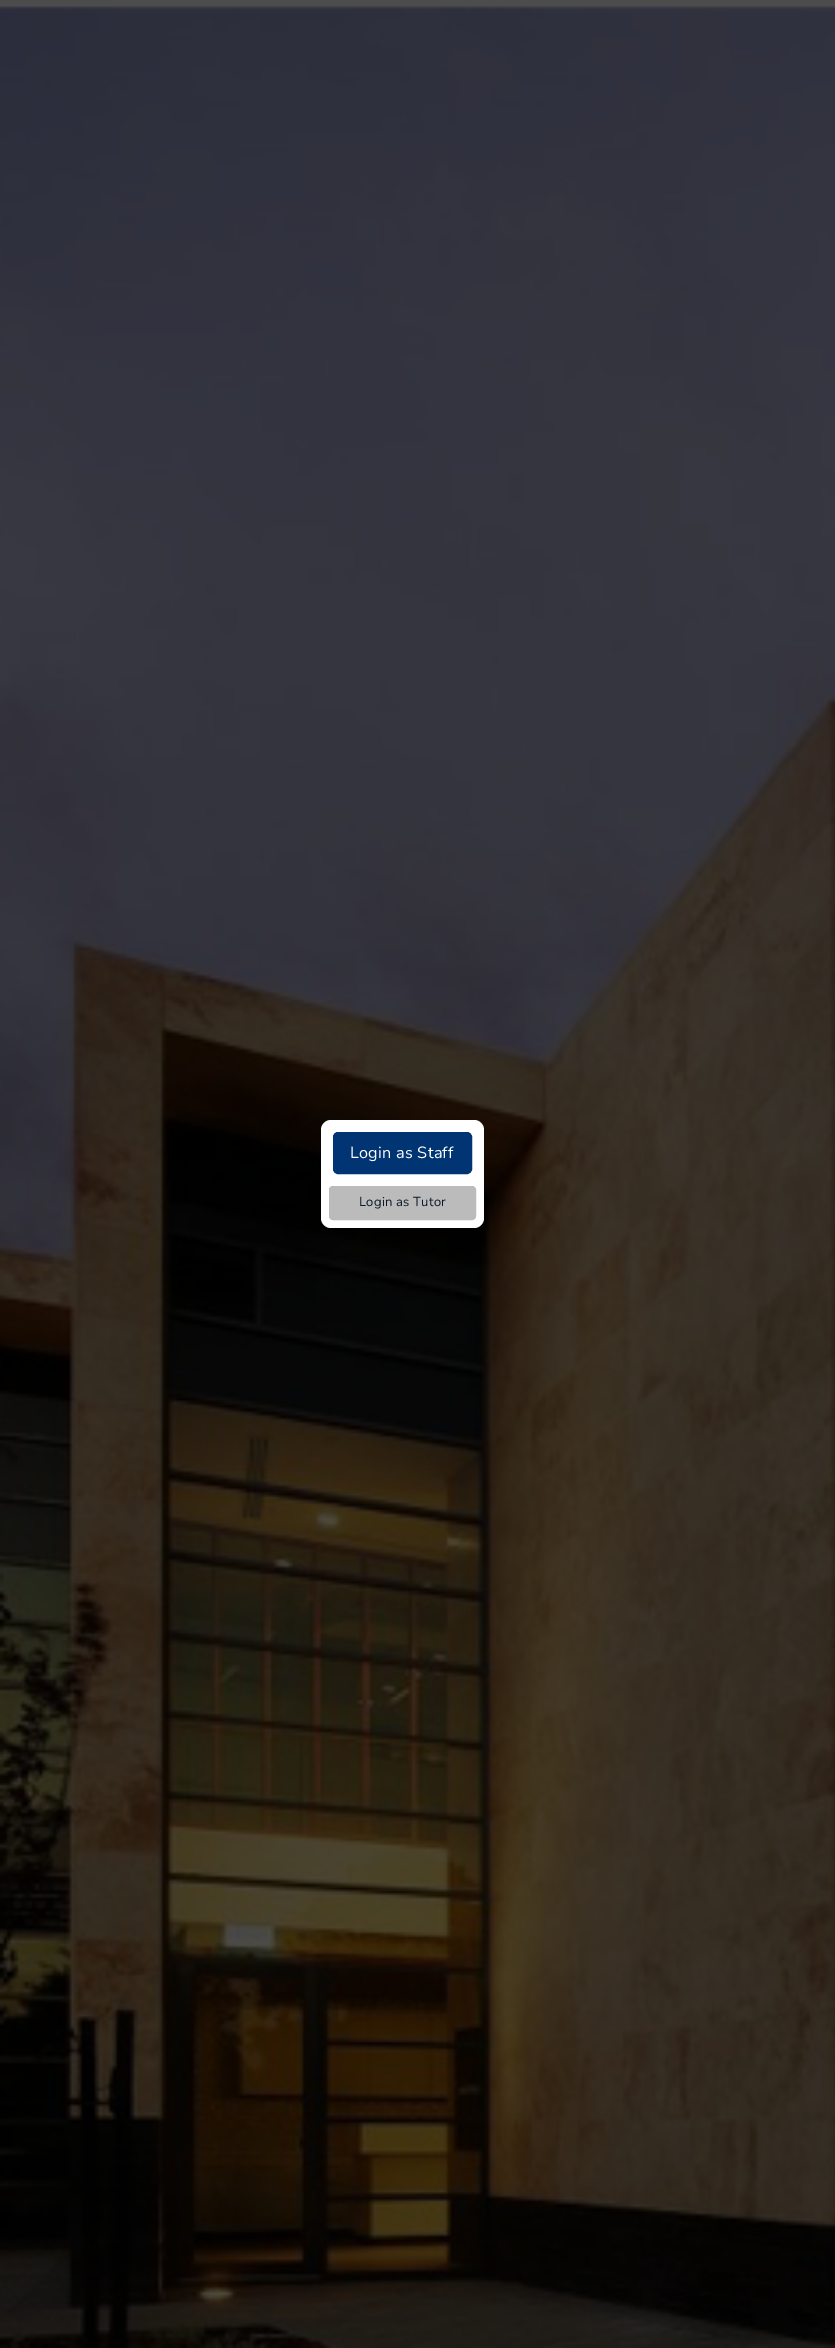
%!PS
<< /PageSize [835 2348] >> setpagedevice
/m/moveto load def
/f/fill load def
/s/stroke load def
/q/gsave load def
/Q_/grestore load def
/C { dup -16 bitshift 255 div exch dup -8 bitshift 255 and 255 div exch 255 and 255 div setrgbcolor } def
/F { [ exch dup neg 0 0 3 -1 roll 0 0 ] selectfont } def
/R { rectfill } def
/Q { 5 dict begin { /r /h /w /y /x } { exch def } forall
  x r add y moveto x w add y 2 copy h add r arct x w add y h add x 1 index r arct
  x y h add x y r arct x y 2 copy exch w add exch r arct closepath end } def
/I { 5 dict begin { /h /w /y /x /name } { exch def } forall
  gsave x y translate w h scale
  w h 8 [w 0 0 h 0 0] name (r) file false 3 colorimage grestore end } def
0 2348 translate 1 -1 scale
4 setmiterlimit
16#FFFFFF C
0 0 835 2348 R
(1.rgb) 0 0 835 2348 I
321 1120 163 108 10 Q f
16#003473 C
333.5 1132.5 138 41 4.5 Q q f Q_
s
/Nunito-Regular 16.25 F
16#FFFFFF C
350 1158 m .25 0 (Login as Staff) ashow
16#BBBBBB C
329.5 1186.5 146 33 3.5 Q q f Q_
s
/Nunito-Regular 13 F
16#0B192B C
359 1206 m .25 0 (Login as Tutor) ashow
showpage
